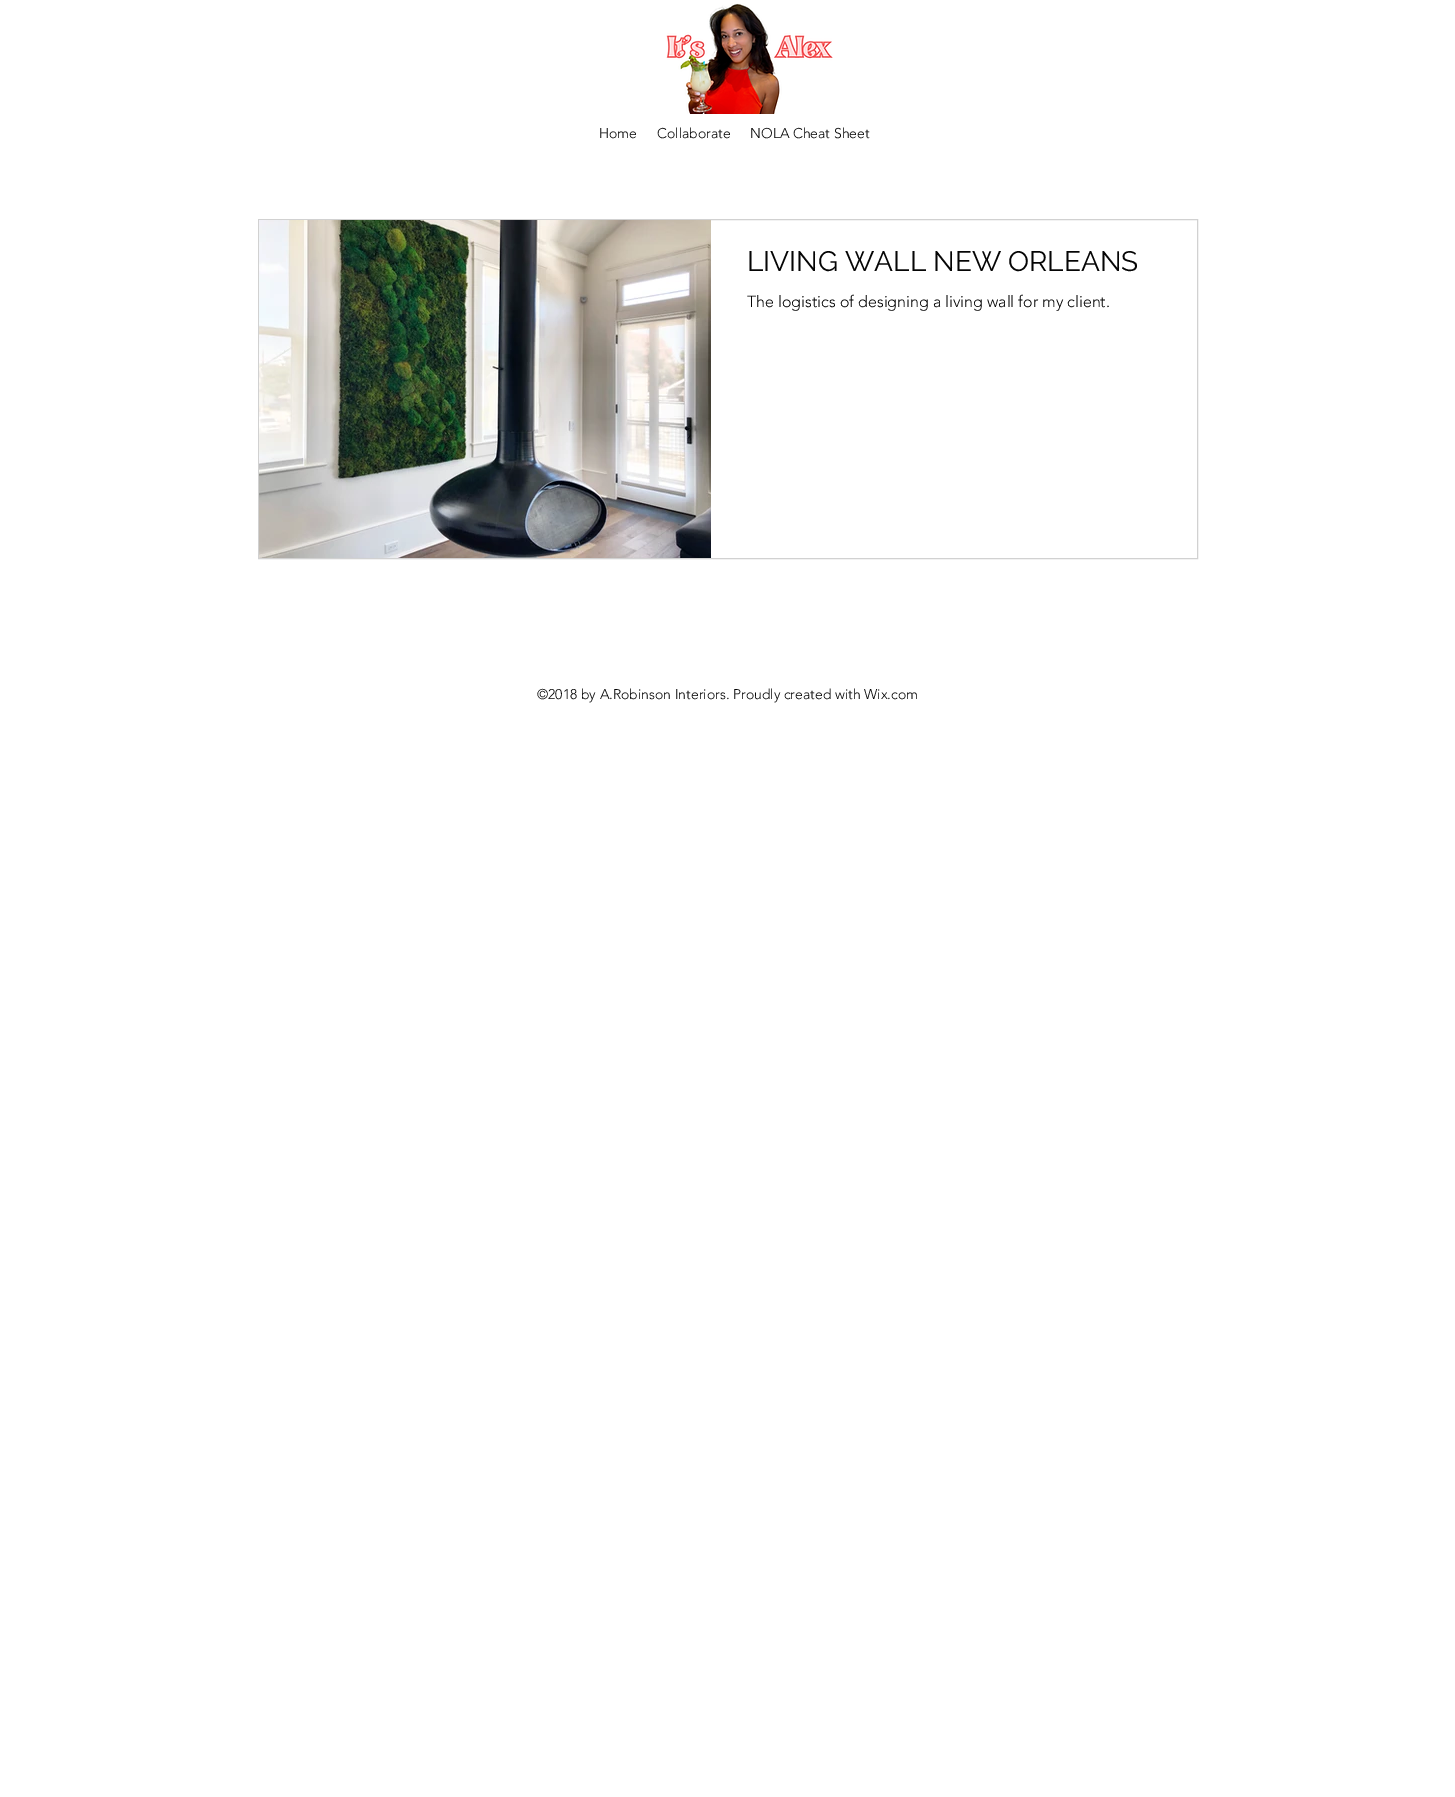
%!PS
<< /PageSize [1455 1797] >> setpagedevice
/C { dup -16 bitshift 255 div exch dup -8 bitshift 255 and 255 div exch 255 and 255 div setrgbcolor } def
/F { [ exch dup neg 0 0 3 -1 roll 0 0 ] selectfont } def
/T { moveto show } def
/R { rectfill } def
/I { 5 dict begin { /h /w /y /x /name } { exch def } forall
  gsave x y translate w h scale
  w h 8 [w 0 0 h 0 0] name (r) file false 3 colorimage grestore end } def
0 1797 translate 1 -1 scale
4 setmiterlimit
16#FFFFFF C
0 0 1455 1797 R
(1.rgb) 666 3 167 111 I
/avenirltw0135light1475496-Light 14 F
16#050505 C
(Home) 599 138 T
(Collaborate) 657 138 T
(NOLA Cheat Sheet) 750 138 T
16#D1D1D1 C
258.5 219.5 939 339 rectstroke
(2.rgb) 259 220 452 338 I
/Raleway-Regular 28 F
16#050505 C
(LIVING WALL NEW ORLEANS) 747 271 T
/avenirltw0135light1475496-Light 16 F
(The logistics of designing a living wall for my client.) 747 307 T
/avenirltw0135light1475496-Light 14 F
(©2018 by A.Robinson Interiors. Proudly created with Wix.com) 537 699 T
showpage
